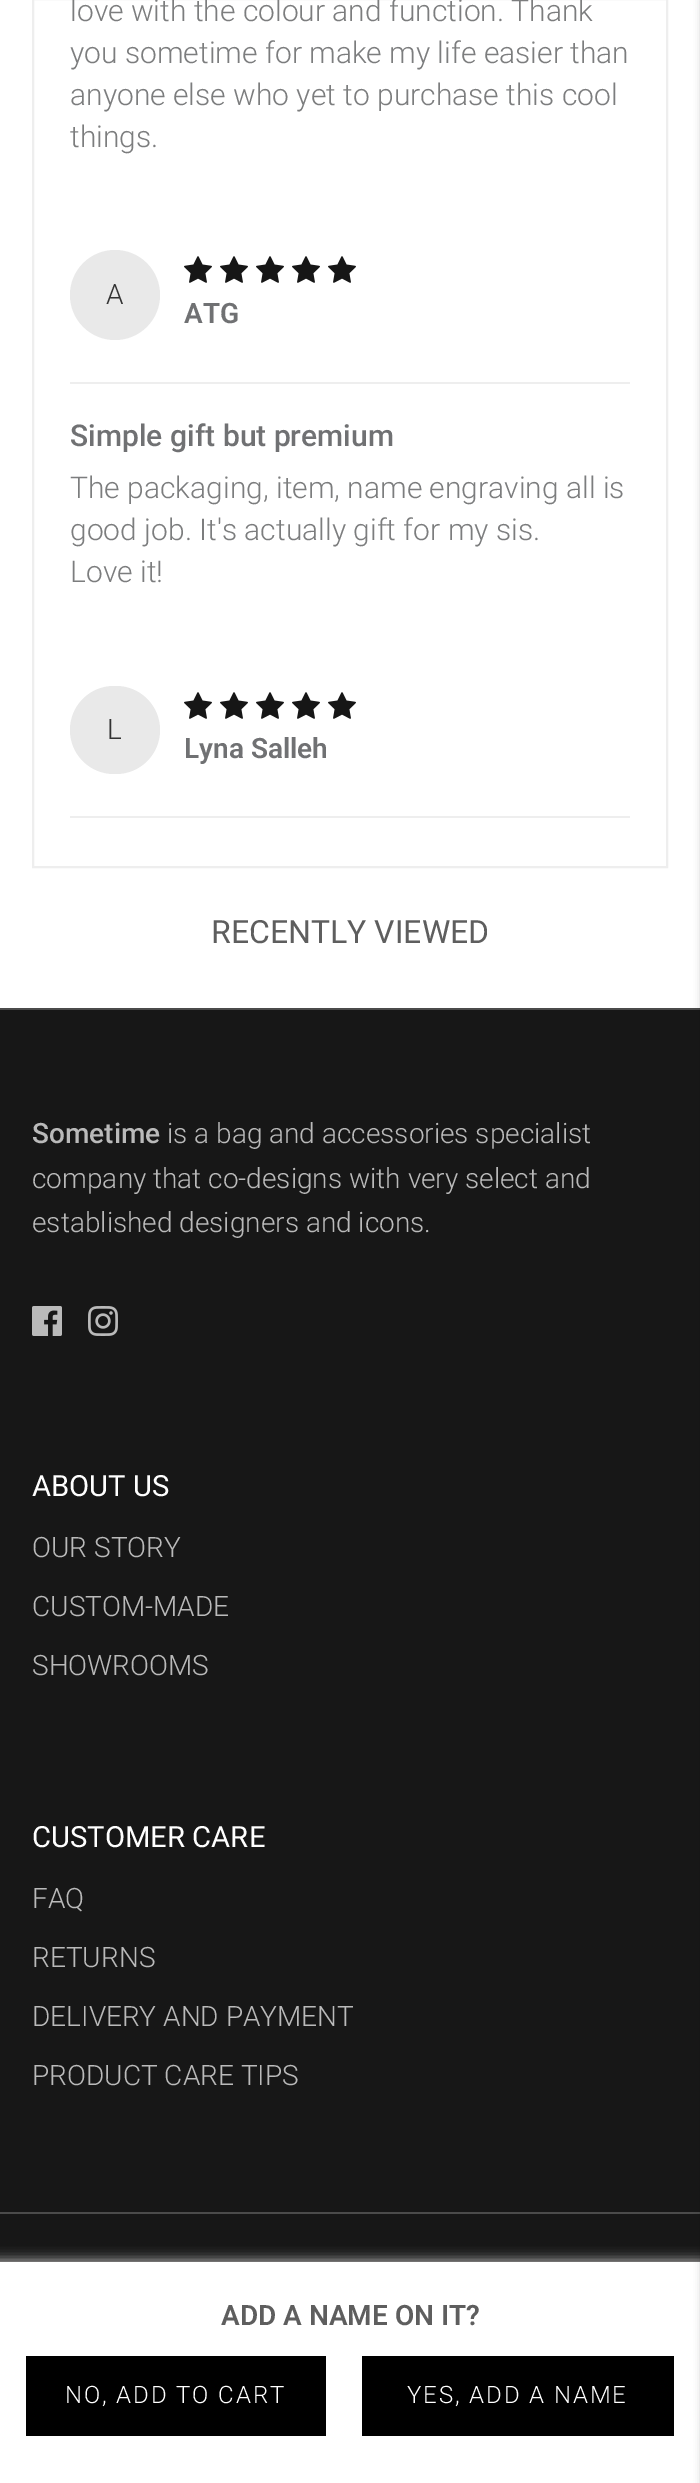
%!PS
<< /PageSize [700 2483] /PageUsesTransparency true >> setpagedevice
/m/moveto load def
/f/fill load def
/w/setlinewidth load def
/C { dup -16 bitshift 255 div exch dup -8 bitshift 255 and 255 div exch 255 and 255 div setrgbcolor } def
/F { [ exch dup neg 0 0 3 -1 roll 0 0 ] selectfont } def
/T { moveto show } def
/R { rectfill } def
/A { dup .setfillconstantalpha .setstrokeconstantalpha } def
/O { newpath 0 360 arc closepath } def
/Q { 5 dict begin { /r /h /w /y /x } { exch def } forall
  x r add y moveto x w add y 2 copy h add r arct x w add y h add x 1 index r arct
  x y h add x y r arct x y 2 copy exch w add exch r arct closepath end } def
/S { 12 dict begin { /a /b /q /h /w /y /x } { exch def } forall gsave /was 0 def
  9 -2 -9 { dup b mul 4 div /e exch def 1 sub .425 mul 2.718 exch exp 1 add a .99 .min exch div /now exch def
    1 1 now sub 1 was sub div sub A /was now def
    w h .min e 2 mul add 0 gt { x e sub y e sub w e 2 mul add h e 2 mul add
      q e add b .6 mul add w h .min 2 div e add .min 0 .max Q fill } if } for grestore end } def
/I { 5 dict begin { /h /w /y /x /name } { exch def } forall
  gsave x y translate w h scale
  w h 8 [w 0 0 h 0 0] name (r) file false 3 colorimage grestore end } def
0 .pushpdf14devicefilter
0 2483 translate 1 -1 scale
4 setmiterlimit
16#FFFFFF C
0 0 700 2483 R
16#EEEEEE C
2 w
33 -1 634 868 rectstroke
/Roboto-Light 30 F
16#7C7D7E C
(love with the colour and function. Thank) 70 21 T
(you sometime for make my life easier than) 70 63 T
(anyone else who yet to purchase this cool) 70 105 T
(things.) 70 147 T
(1.rgb) 184 256 28 27 I
(1.rgb) 220 256 28 27 I
(1.rgb) 256 256 28 27 I
(1.rgb) 292 256 28 27 I
(1.rgb) 328 256 28 27 I
16#E9E9E9 C
115 295 45 O f
/Roboto-Light 28 F
16#333333 C
(A) 106 304 T
/Roboto-SemiBold 28 F
16#707173 C
(ATG) 184 323 T
16#EEEEEE C
70 382 560 2 R
70 816 560 2 R
/Roboto-Medium 30 F
16#707173 C
(Simple gift but premium) 70 446 T
/Roboto-Light 30 F
16#7C7D7E C
(The packaging, item, name engraving all is) 70 498 T
(good job. It's actually gift for my sis.) 70 540 T
(Love it!) 70 582 T
(1.rgb) 184 692 28 27 I
(1.rgb) 220 692 28 27 I
(1.rgb) 256 692 28 27 I
(1.rgb) 292 692 28 27 I
(1.rgb) 328 692 28 27 I
16#E9E9E9 C
70 686 90 88 44 Q f
/Roboto-Light 28 F
16#333333 C
(L) 107 739 T
/Roboto-SemiBold 28 F
16#707173 C
(Lyna Salleh) 184 758 T
/Roboto-Regular 32 F
16#5E5E5E C
(RECENTLY VIEWED) 211 943 T
16#171717 C
0 1010 700 1252 R
16#B1AFAF C
-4 2260 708 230 0 6 1 S
16#FFFFFF C
0 2262 700 221 R
/Roboto-SemiBold 28 F
16#5E5E5E C
(ADD A NAME ON IT?) 221 2325 T
16#000000 C
26 2356 300 80 R
/Roboto-Light 24 F
16#FFFFFF C
65 2403 m 1.9 0 (NO, ADD TO CART) ashow
16#000000 C
362 2356 312 80 R
16#FFFFFF C
407 2403 m 1.9 0 (YES, ADD A NAME) ashow
16#4B4B4B C
0 1008 700 2 R
0 2212 700 2 R
16#000000 C
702 0 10 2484 0 4 .25 S
/Roboto-Medium 28 F
16#BABABA C
(Sometime) 32 1143 T
/Roboto-Light 28 F
(is a bag and accessories specialist) 167 1143 T
(company that co-designs with very select and) 32 1188 T
(established designers and icons.) 32 1232 T
(2.rgb) 32 1306 30 30 I
(3.rgb) 88 1306 30 30 I
/Roboto-Regular 29.25 F
16#FFFFFF C
(ABOUT US) 32 1496 T
/Roboto-Light 28 F
16#BABABA C
(OUR STORY) 32 1557 T
(CUSTOM-MADE) 32 1616 T
(SHOWROOMS) 32 1675 T
/Roboto-Regular 29.25 F
16#FFFFFF C
(CUSTOMER CARE) 32 1847 T
/Roboto-Light 28 F
16#BABABA C
(FAQ) 32 1908 T
(RETURNS) 32 1967 T
(DELIVERY AND PAYMENT) 32 2026 T
(PRODUCT CARE TIPS) 32 2085 T
.poppdf14devicefilter showpage
